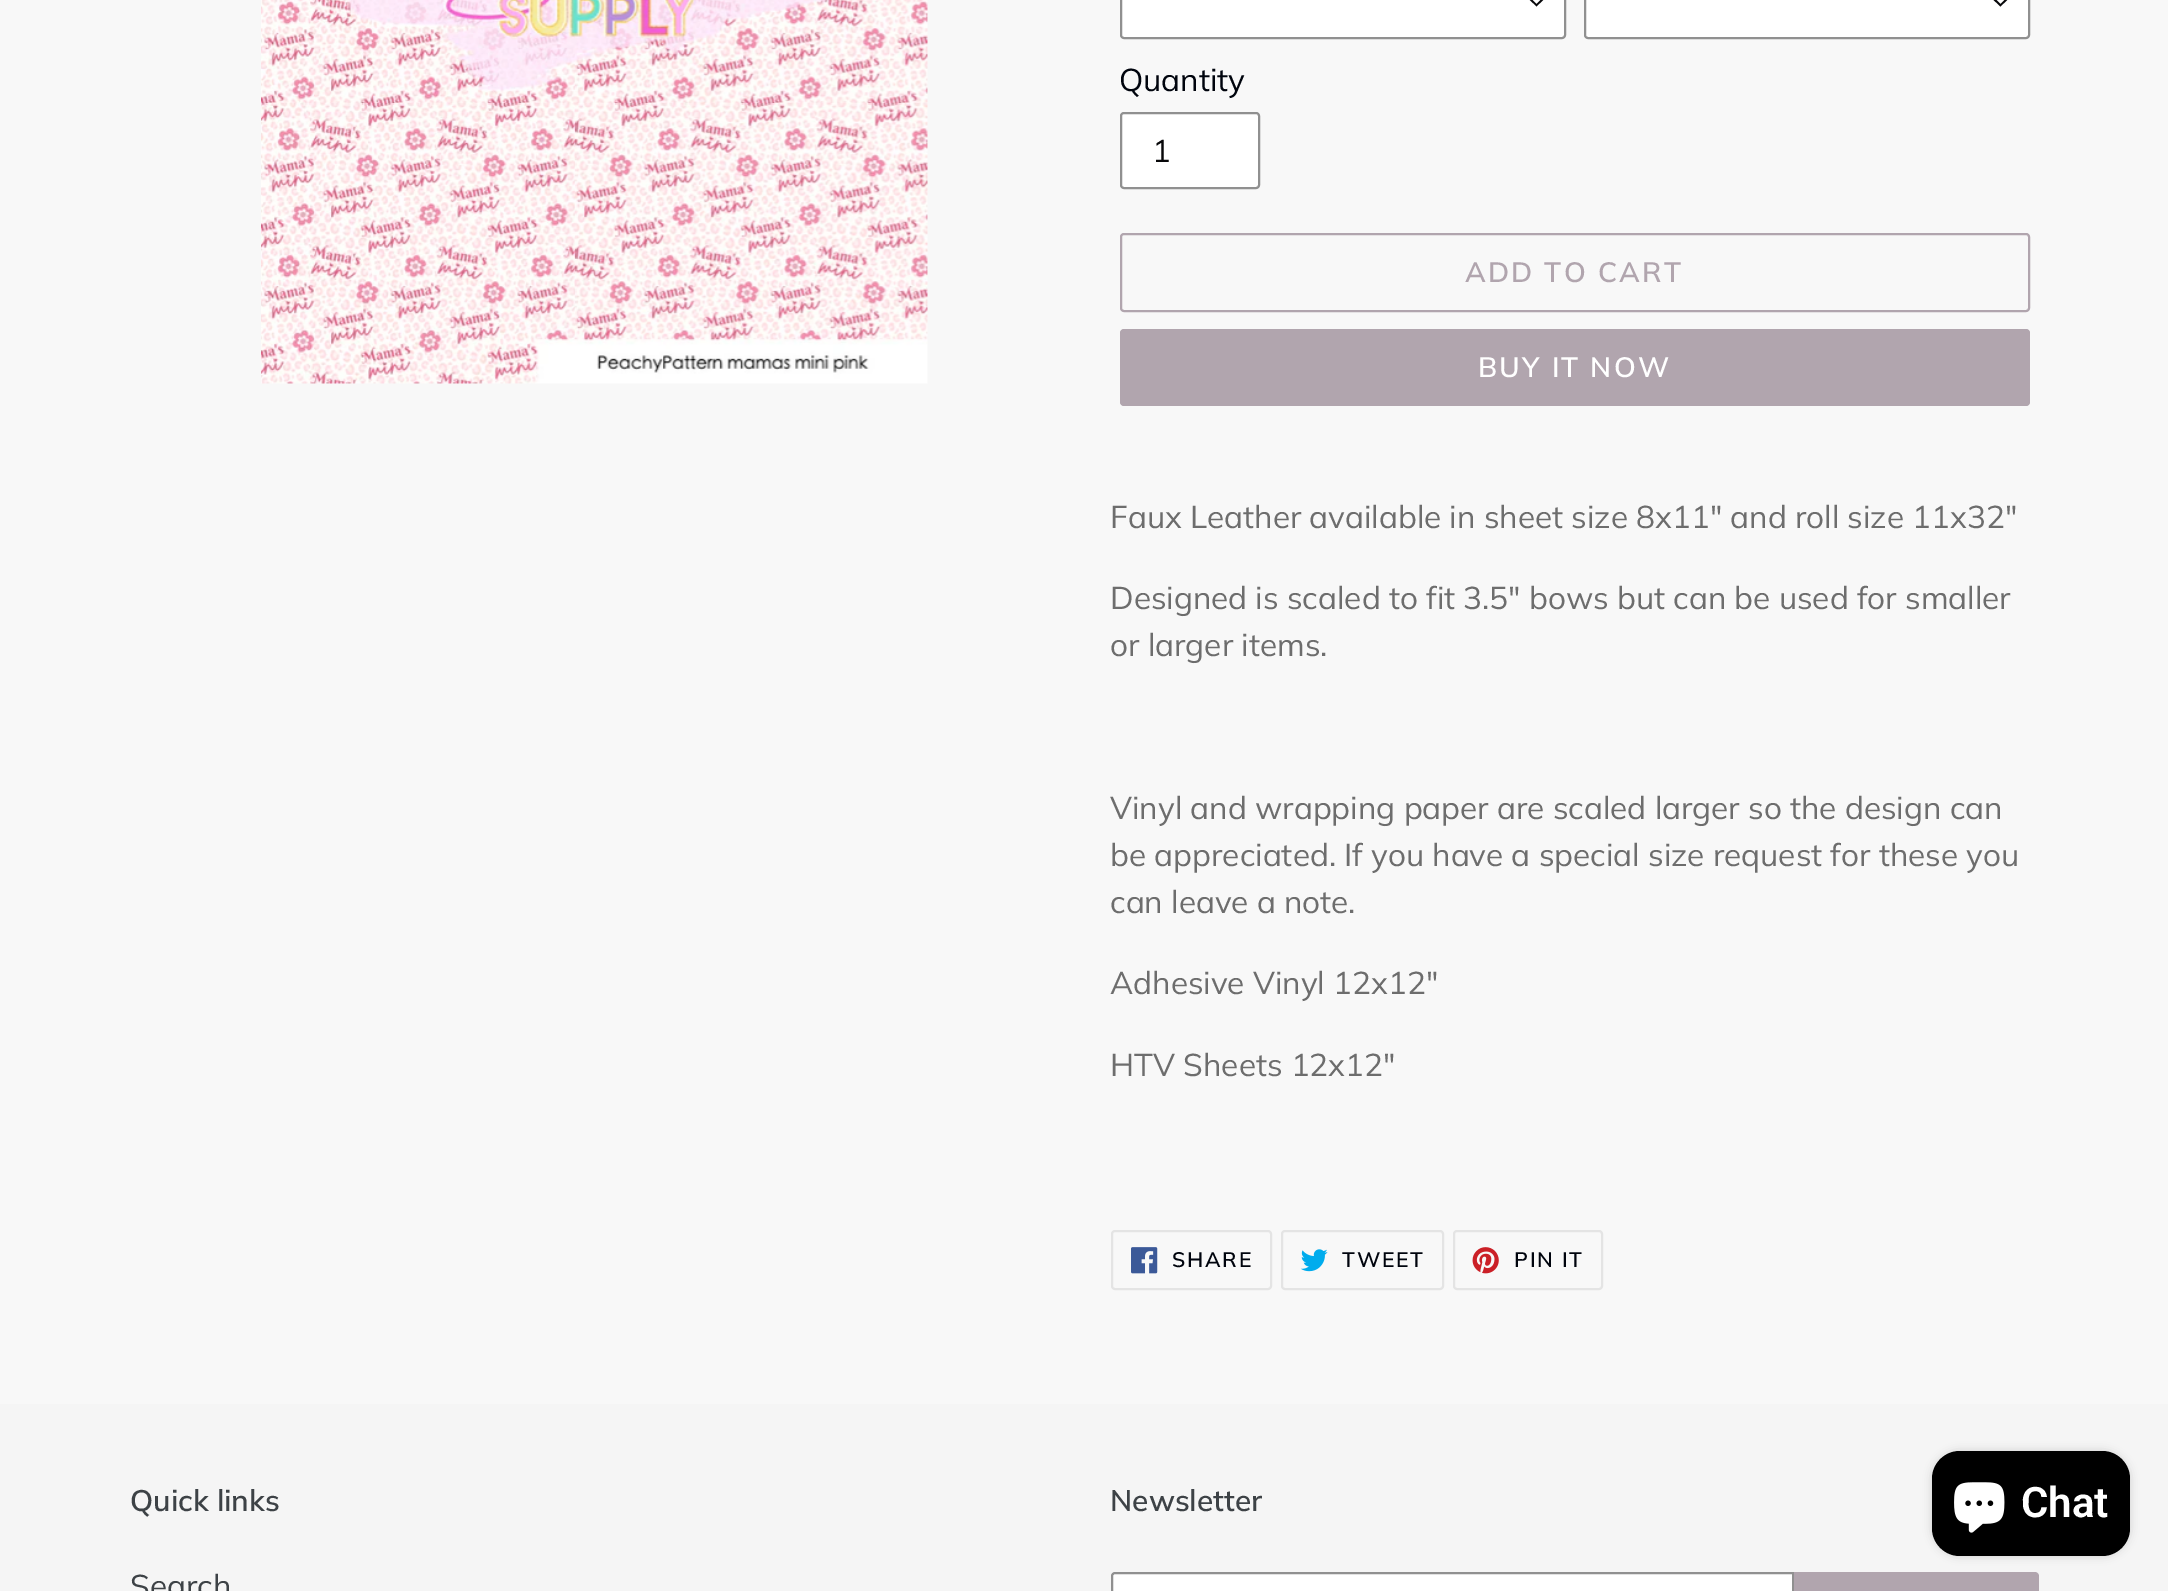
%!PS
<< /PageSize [2168 1591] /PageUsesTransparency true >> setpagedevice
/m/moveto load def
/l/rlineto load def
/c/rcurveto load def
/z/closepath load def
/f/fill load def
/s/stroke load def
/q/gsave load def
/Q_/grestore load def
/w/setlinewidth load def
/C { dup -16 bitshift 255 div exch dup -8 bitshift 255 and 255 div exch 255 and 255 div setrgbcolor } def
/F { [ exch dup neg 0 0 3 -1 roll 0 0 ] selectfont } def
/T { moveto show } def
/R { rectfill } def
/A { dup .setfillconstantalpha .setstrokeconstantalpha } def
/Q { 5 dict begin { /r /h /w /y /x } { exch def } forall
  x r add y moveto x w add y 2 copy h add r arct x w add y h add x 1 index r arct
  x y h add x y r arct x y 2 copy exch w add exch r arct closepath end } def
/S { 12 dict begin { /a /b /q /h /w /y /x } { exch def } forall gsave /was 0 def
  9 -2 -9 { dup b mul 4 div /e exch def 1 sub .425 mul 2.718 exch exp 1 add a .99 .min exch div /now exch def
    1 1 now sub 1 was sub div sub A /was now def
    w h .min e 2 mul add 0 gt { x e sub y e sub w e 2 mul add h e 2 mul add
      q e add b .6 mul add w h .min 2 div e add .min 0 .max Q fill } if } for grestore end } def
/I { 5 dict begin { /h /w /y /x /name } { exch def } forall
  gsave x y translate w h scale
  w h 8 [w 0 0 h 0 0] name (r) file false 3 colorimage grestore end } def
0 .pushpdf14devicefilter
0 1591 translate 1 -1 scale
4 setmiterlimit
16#F8F8F8 C
0 0 2168 1591 R
(1.rgb) 261 0 667 384 I
16#FFFFFF C
1120 -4 446 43 4 Q f
16#08080A C
1536.5 6.5 m -9 -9 l 1 -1.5 l 8 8 l 8 -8 l 1 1.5 l z f
16#909090 C
2 w
1121 -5 444 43 3 Q s
16#FFFFFF C
1584 -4 446 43 4 Q f
16#08080A C
2000.5 6.5 m -9.5 -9 l 1.5 -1.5 l 8 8 l 8 -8 l 1 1.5 l z f
16#909090 C
1585 -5 444 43 3 Q s
/Muli-Regular 31.5 F
16#00040D C
(Quantity) 1119 91 T
16#FFFFFF C
1121 113 138 75 3 Q q f Q_
16#909090 C
s
16#08080A C
(1) 1152 162 T
16#B1A5AE C
1121 234 908 77 3 Q s
/Muli-SemiBold 28 F
1465 282 m 2.25 0 (ADD TO CART) ashow
1120 329 910 77 4 Q f
16#FFFFFF C
1478 377 m 2.25 0 (BUY IT NOW) ashow
/Muli-Regular 31.5 F
16#6D6D6D C
(Faux Leather available in sheet size 8x11" and roll size 11x32") 1110 528 T
(Designed is scaled to fit 3.5" bows but can be used for smaller) 1110 609 T
(or larger items.) 1110 656 T
(Vinyl and wrapping paper are scaled larger so the design can) 1110 819 T
(be appreciated. If you have a special size request for these you) 1110 866 T
(can leave a note.) 1110 913 T
(Adhesive Vinyl 12x12") 1110 994 T
(HTV Sheets 12x12") 1110 1076 T
16#E4E4E4 C
1112 1231 159 58 3 Q s
(2.rgb) 1131 1247 27 27 I
/Muli-SemiBold 21 F
16#00040D C
1172 1267 m 1.75 0 (SHARE) ashow
16#E4E4E4 C
1282 1231 161 58 3 Q s
(3.rgb) 1300 1249 28 23 I
16#00040D C
1342 1267 m 1.75 0 (TWEET) ashow
16#E4E4E4 C
1454 1231 148 58 3 Q s
(4.rgb) 1472 1247 27 27 I
16#00040D C
1514 1267 m 1.75 0 (PIN IT) ashow
16#F5F5F5 C
0 1404 2168 187 R
/Muli-SemiBold 29.75 F
16#3D4246 C
(Quick links) 130 1511 T
/Muli-Regular 31.5 F
(Search) 130 1597 T
/Muli-SemiBold 29.75 F
(Newsletter) 1110 1511 T
16#FFFFFF C
1115 1573 m 678 0 l 0 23 l -678 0 l -1.5 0 -3 -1.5 -3 -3 c 0 -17 l 0 -1.5 1.5 -3 3 -3 c z q f Q_
16#909090 C
s
16#B1A5AE C
1794 1572 m 241 0 l 2 0 4 2 4 4 c 0 15 l 0 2 -2 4 -4 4 c -241 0 l z f
16#000000 C
1932 1451 198 105 28 4.5 .15 S
1932 1451 198 105 28 Q f
(5.rgb) 1954 1482 51 51 I
/Roboto-SemiBold 42 F
16#FFFFFF C
(Chat) 2021 1517 T
.poppdf14devicefilter showpage
